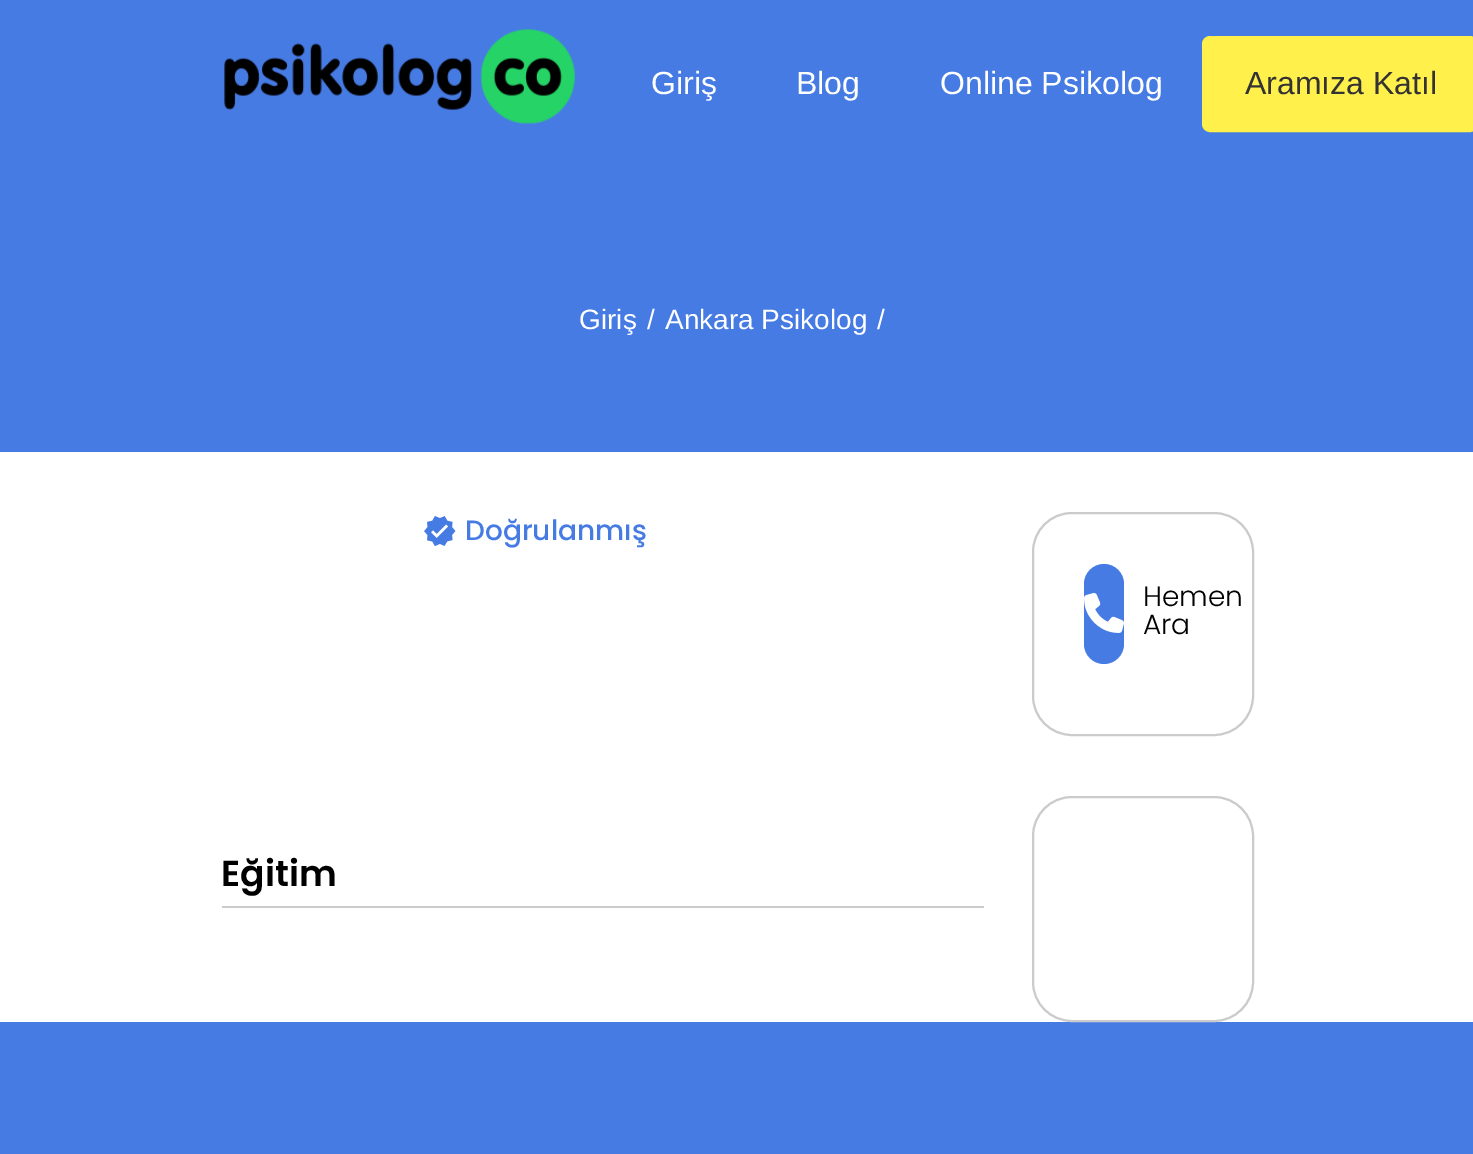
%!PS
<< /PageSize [1473 1154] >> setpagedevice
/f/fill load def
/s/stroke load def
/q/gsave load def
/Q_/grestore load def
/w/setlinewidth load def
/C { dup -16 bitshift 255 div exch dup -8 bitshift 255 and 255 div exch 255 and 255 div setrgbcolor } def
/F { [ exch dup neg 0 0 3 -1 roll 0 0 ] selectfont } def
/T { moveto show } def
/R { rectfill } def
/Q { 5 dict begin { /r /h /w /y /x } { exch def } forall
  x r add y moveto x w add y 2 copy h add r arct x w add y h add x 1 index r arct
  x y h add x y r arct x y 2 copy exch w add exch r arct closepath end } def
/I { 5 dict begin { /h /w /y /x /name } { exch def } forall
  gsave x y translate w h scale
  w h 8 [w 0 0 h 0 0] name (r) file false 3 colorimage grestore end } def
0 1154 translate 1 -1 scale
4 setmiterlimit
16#477BE4 C
0 0 1473 1154 R
(1.rgb) 224 29 351 95 I
/LiberationSans-Regular 32 F
16#FFFFFF C
(Giriş) 651 94 T
(Blog) 796 94 T
(Online Psikolog) 940 94 T
16#FFF04B C
1203 37 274 94 7 Q q f Q_
2 w
s
16#333333 C
(Aramıza Katıl) 1245 94 T
/LiberationSans-Regular 28 F
16#FFFFFF C
(Giriş) 579 329 T
(/) 647 329 T
(Ankara Psikolog) 665 329 T
(/) 877 329 T
0 452 1473 570 R
(2.rgb) 424 516 32 30 I
/Poppins-Medium 28 F
16#477BE4 C
(Doğrulanmış) 465 540 T
16#CBCBCB C
222 906 762 2 R
/Poppins-SemiBold 36 F
16#000000 C
(Eğitim) 221 886 T
16#CBCBCB C
1033 513 220 222 39 Q s
16#477BE4 C
1084 564 40 100 20 Q f
(3.rgb) 1084 593 40 40 I
/Poppins-Light 28 F
16#000000 C
(Hemen) 1143 606 T
(Ara) 1143 634 T
16#CBCBCB C
1033 797 220 224 39 Q s
showpage
